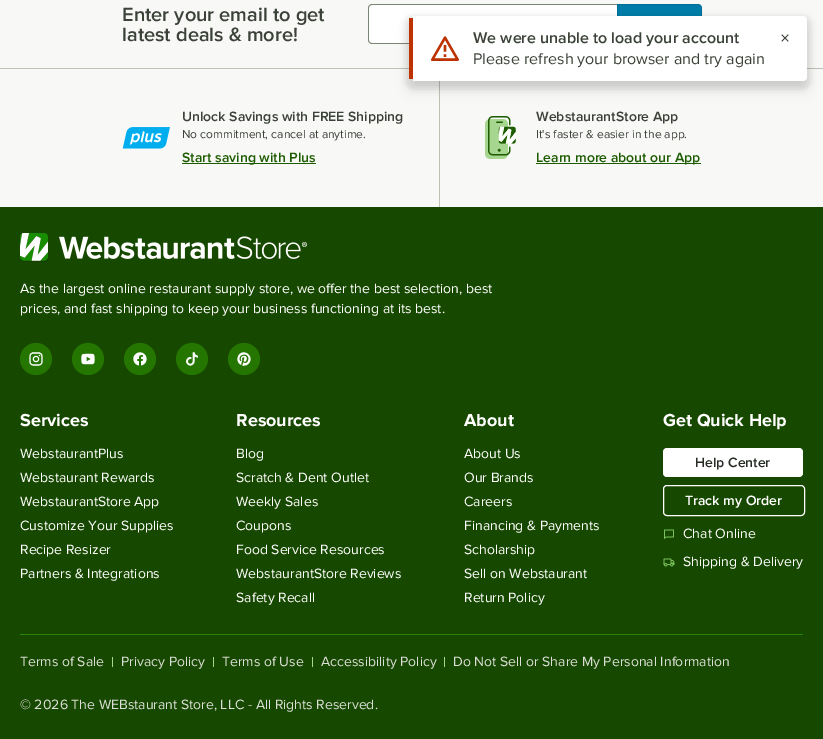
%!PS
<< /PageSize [823 739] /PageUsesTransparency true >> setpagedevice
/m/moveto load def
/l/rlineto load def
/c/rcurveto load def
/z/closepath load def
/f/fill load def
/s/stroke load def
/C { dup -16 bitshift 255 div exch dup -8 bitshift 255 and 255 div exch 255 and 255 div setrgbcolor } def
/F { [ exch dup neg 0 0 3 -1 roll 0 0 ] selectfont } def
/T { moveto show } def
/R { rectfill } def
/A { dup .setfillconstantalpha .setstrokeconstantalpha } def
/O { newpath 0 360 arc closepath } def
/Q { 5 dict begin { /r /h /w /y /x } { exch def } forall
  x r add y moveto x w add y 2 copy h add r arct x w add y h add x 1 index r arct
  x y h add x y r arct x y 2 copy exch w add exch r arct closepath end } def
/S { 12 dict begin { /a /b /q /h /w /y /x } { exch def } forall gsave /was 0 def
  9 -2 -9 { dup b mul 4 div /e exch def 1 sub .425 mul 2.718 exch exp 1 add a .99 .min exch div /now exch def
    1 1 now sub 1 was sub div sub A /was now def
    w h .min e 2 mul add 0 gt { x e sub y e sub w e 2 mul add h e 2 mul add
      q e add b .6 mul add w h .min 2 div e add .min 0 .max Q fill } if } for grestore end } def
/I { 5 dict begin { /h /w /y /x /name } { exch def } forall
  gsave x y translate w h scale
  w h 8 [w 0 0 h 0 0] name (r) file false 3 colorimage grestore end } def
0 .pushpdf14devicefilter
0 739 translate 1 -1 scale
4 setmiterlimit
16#174800 C
0 0 823 739 R
16#F8F8F7 C
0 0 823 207 R
/ProximaNova-SemiBold 20 F
16#3B4238 C
(Enter your email to get) 122 21 T
(latest deals & more!) 122 41 T
16#FFFFFF C
372 4 m 245 0 l 0 40 l -245 0 l -2 0 -4 -2 -4 -4 c 0 -32 l 0 -2 2 -4 4 -4 c z f
16#7A8671 C
372 4 m 245 0 l 0 40 l -245 0 l -2 0 -4 -2 -4 -4 c 0 -32 l 0 -2 2 -4 4 -4 c z 372 5 m 245 0 l 0 38 l -245 0 l -2 0 -3 -1 -3 -3 c 0 -32 l 0 -2 1 -3 3 -3 c z eofill
16#007CAA C
617 4 m 81 0 l 2 0 4 2 4 4 c 0 32 l 0 2 -2 4 -4 4 c -81 0 l z f
0.1 A
16#000000 C
617.5 4.5 m 80.5 0 l 2 0 3.5 1.5 3.5 3.5 c 0 32 l 0 2 -1.5 3.5 -3.5 3.5 c -80.5 0 l z s
1 A
16#BCC3B6 C
0 68 823 1 R
(1.rgb) 122 127 48 22 I
/ProximaNova-SemiBold 14 F
16#3B4238 C
(Unlock Savings with FREE Shipping) 182 121 T
/ProximaNova-Regular 12 F
(No commitment, cancel at anytime.) 182 138 T
16#1D5C00 C
182 163 134 1 R
/ProximaNova-SemiBold 14 F
(Start saving with Plus) 182 162 T
16#BCC3B6 C
439 81 1 126 R
(2.rgb) 485 116 31 43 I
16#3B4238 C
(WebstaurantStore App) 536 121 T
/ProximaNova-Regular 12 F
(It's faster & easier in the app.) 536 138 T
16#1D5C00 C
536 163 165 1 R
/ProximaNova-SemiBold 14 F
(Learn more about our App) 536 162 T
(3.rgb) 20 233 28 29 I
(4.rgb) 59 236 248 23 I
/ProximaNova-Regular 14 F
16#FFFFFF C
(As the largest online restaurant supply store, we offer the best selection, best) 20 293 T
(prices, and fast shipping to keep your business functioning at its best.) 20 313 T
16#257600 C
36 359 16 O f
(5.rgb) 29 352 14 14 I
88 359 16 O f
(6.rgb) 81 353 14 12 I
140 359 16 O f
(7.rgb) 133 352 14 14 I
192 359 16 O f
(8.rgb) 186 352 12 14 I
244 359 16 O f
(9.rgb) 237 352 14 14 I
/ProximaNova-Bold 18 F
16#FFFFFF C
(Services) 20 426 T
/ProximaNova-Regular 14 F
(WebstaurantPlus) 20 458 T
(Webstaurant Rewards) 20 482 T
(WebstaurantStore App) 20 506 T
(Customize Your Supplies) 20 530 T
(Recipe Resizer) 20 554 T
(Partners & Integrations) 20 578 T
/ProximaNova-Bold 18 F
(Resources) 236 426 T
/ProximaNova-Regular 14 F
(Blog) 236 458 T
(Scratch & Dent Outlet) 236 482 T
(Weekly Sales) 236 506 T
(Coupons) 236 530 T
(Food Service Resources) 236 554 T
(WebstaurantStore Reviews) 236 578 T
(Safety Recall) 236 602 T
/ProximaNova-Bold 18 F
(About) 464 426 T
/ProximaNova-Regular 14 F
(About Us) 464 458 T
(Our Brands) 464 482 T
(Careers) 464 506 T
(Financing & Payments) 464 530 T
(Scholarship) 464 554 T
(Sell on Webstaurant) 464 578 T
(Return Policy) 464 602 T
/ProximaNova-Bold 18 F
(Get Quick Help) 663 426 T
663 448 140 29 4 Q f
/ProximaNova-SemiBold 14 F
16#272C25 C
(Help Center) 695 467 T
16#FFFFFF C
663.5 485.5 141 30 3.5 Q s
(Track my Order) 685 505 T
(10.rgb) 664 529 10 11 I
/ProximaNova-Regular 14 F
(Chat Online) 683 538 T
(11.rgb) 663 558 12 9 I
(Shipping & Delivery) 683 566 T
16#298200 C
20 634 783 1 R
16#DBDFD8 C
(Terms of Sale) 20 666 T
16#A6D690 C
112 657 1 10 R
16#DBDFD8 C
(Privacy Policy) 121 666 T
16#A6D690 C
213 657 1 10 R
16#DBDFD8 C
(Terms of Use) 222 666 T
16#A6D690 C
312 657 1 10 R
16#DBDFD8 C
(Accessibility Policy) 321 666 T
16#A6D690 C
444 657 1 10 R
16#DBDFD8 C
(Do Not Sell or Share My Personal Information) 453 666 T
(© 2026 The WEBstaurant Store, LLC - All Rights Reserved.) 20 709 T
16#000000 C
412 29 392 59 1 7.5 .1 S
405 16 406 73 8 3 .1 S
16#FFFFFF C
413 16 m 390 0 l 2 0 4 2 4 4 c 0 57 l 0 2 -2 4 -4 4 c -390 0 l z f
16#BC3200 C
409 18 4 61 R
(12.rgb) 431 36 28 25 I
/ProximaNova-SemiBold 16 F
16#3B4238 C
(We were unable to load your account) 473 43 T
/ProximaNova-Regular 16 F
(Please refresh your browser and try again) 473 64 T
(13.rgb) 781 34 8 8 I
.poppdf14devicefilter showpage
